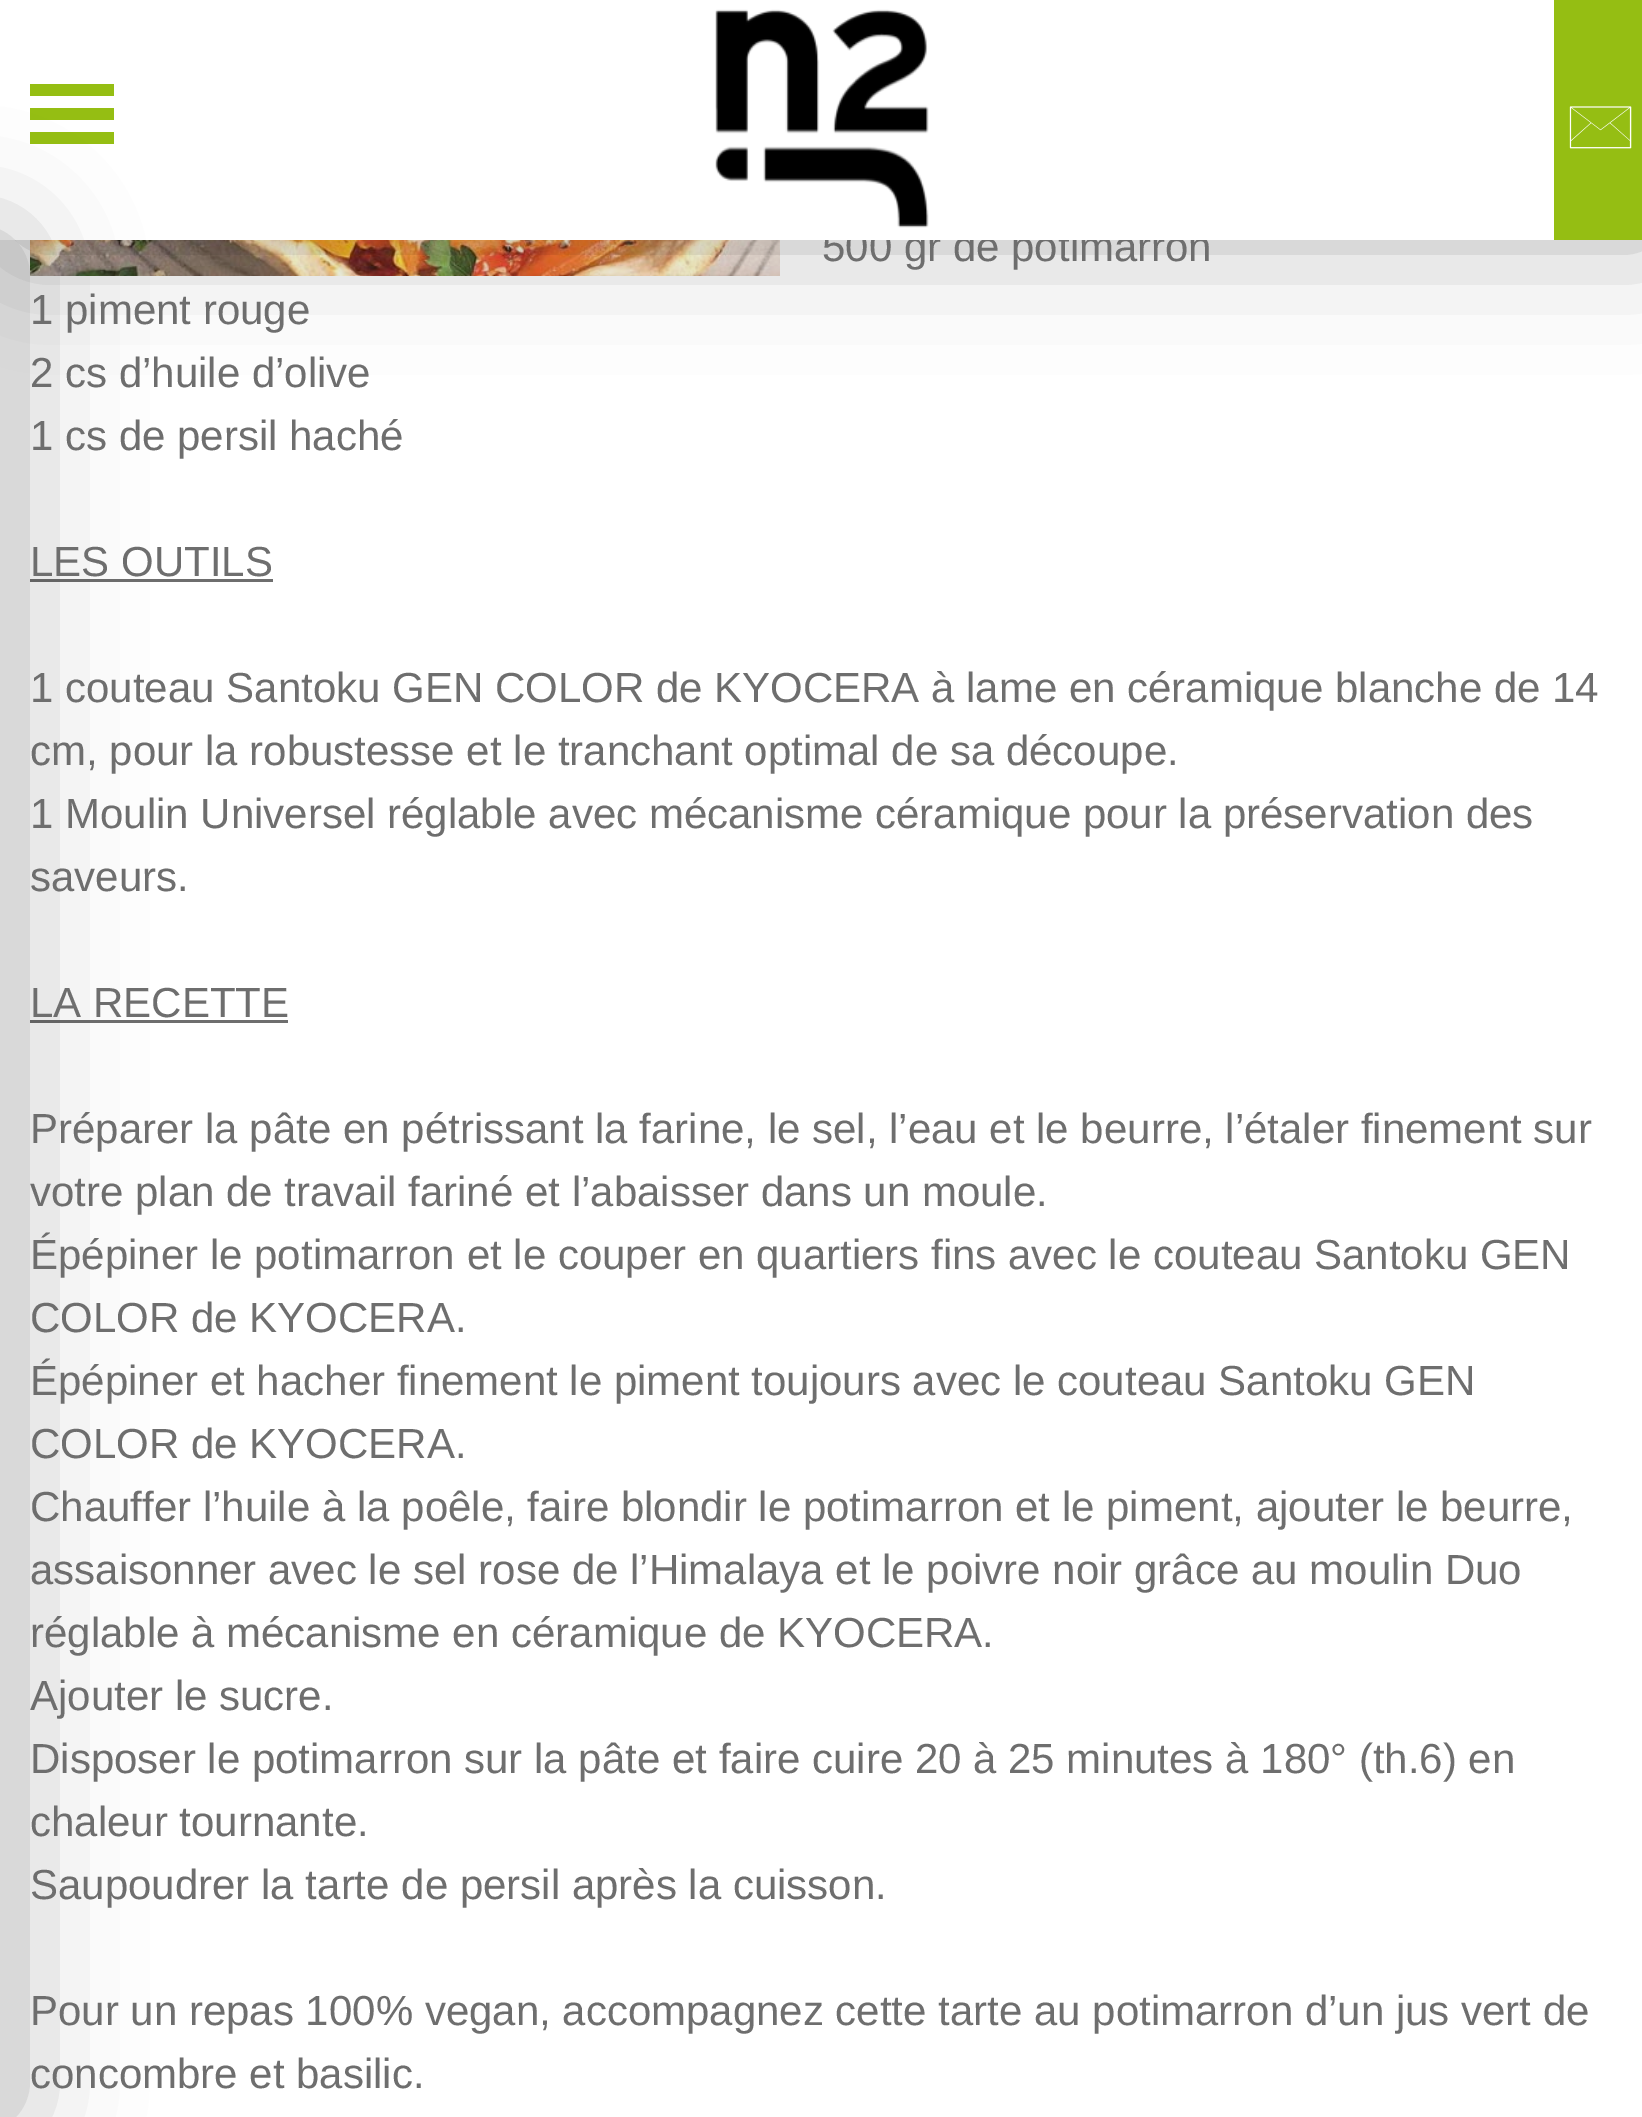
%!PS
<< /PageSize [1642 2117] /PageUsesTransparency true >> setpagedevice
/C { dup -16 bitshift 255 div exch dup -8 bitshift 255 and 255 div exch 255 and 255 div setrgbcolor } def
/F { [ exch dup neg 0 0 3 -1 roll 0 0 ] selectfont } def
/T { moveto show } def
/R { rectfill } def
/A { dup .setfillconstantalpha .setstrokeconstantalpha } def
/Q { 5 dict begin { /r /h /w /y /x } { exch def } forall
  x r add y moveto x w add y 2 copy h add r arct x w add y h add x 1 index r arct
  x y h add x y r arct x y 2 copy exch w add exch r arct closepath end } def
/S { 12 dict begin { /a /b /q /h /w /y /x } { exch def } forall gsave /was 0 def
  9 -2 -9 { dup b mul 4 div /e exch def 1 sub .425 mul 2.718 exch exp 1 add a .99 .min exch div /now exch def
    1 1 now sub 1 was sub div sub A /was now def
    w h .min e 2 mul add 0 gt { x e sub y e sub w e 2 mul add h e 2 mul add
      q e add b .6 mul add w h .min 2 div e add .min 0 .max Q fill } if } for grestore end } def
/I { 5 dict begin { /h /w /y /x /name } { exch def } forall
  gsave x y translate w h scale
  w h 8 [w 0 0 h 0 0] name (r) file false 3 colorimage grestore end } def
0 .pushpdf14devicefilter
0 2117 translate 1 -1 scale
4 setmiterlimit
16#FFFFFF C
0 0 1642 2117 R
(3.rgb) 30 240 750 36 I
16#000000 C
15 0 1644 240 0 60 .3 S
/LiberationSans-Regular 42 F
16#6E6E6E C
(500 gr de potimarron) 822 261 T
16#FFFFFF C
0 0 1554 240 R
16#95BE13 C
30 84 84 12 R
30 108 84 12 R
30 132 84 12 R
(1.rgb) 715 9 214 219 I
1554 0 88 240 R
(2.rgb) 1569 106 63 43 I
16#6E6E6E C
30 579 243 3 R
30 1020 258 3 R
16#000000 C
-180 240 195 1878 0 60 .3 S
16#6E6E6E C
(1 piment rouge) 30 324 T
(2 cs d’huile d’olive) 30 387 T
(1 cs de persil haché) 30 450 T
(LES OUTILS) 30 576 T
(1 couteau Santoku GEN COLOR de KYOCERA à lame en céramique blanche de 14) 30 702 T
(cm, pour la robustesse et le tranchant optimal de sa découpe.) 30 765 T
(1 Moulin Universel réglable avec mécanisme céramique pour la préservation des) 30 828 T
(saveurs.) 30 891 T
(LA RECETTE) 30 1017 T
(Préparer la pâte en pétrissant la farine, le sel, l’eau et le beurre, l’étaler finement sur) 30 1143 T
(votre plan de travail fariné et l’abaisser dans un moule.) 30 1206 T
(Épépiner le potimarron et le couper en quartiers fins avec le couteau Santoku GEN) 30 1269 T
(COLOR de KYOCERA.) 30 1332 T
(Épépiner et hacher finement le piment toujours avec le couteau Santoku GEN) 30 1395 T
(COLOR de KYOCERA.) 30 1458 T
(Chauffer l’huile à la poêle, faire blondir le potimarron et le piment, ajouter le beurre,) 30 1521 T
(assaisonner avec le sel rose de l’Himalaya et le poivre noir grâce au moulin Duo) 30 1584 T
(réglable à mécanisme en céramique de KYOCERA.) 30 1647 T
(Ajouter le sucre.) 30 1710 T
(Disposer le potimarron sur la pâte et faire cuire 20 à 25 minutes à 180° \(th.6\) en) 30 1773 T
(chaleur tournante.) 30 1836 T
(Saupoudrer la tarte de persil après la cuisson.) 30 1899 T
(Pour un repas 100% vegan, accompagnez cette tarte au potimarron d’un jus vert de) 30 2025 T
(concombre et basilic.) 30 2088 T
.poppdf14devicefilter showpage
